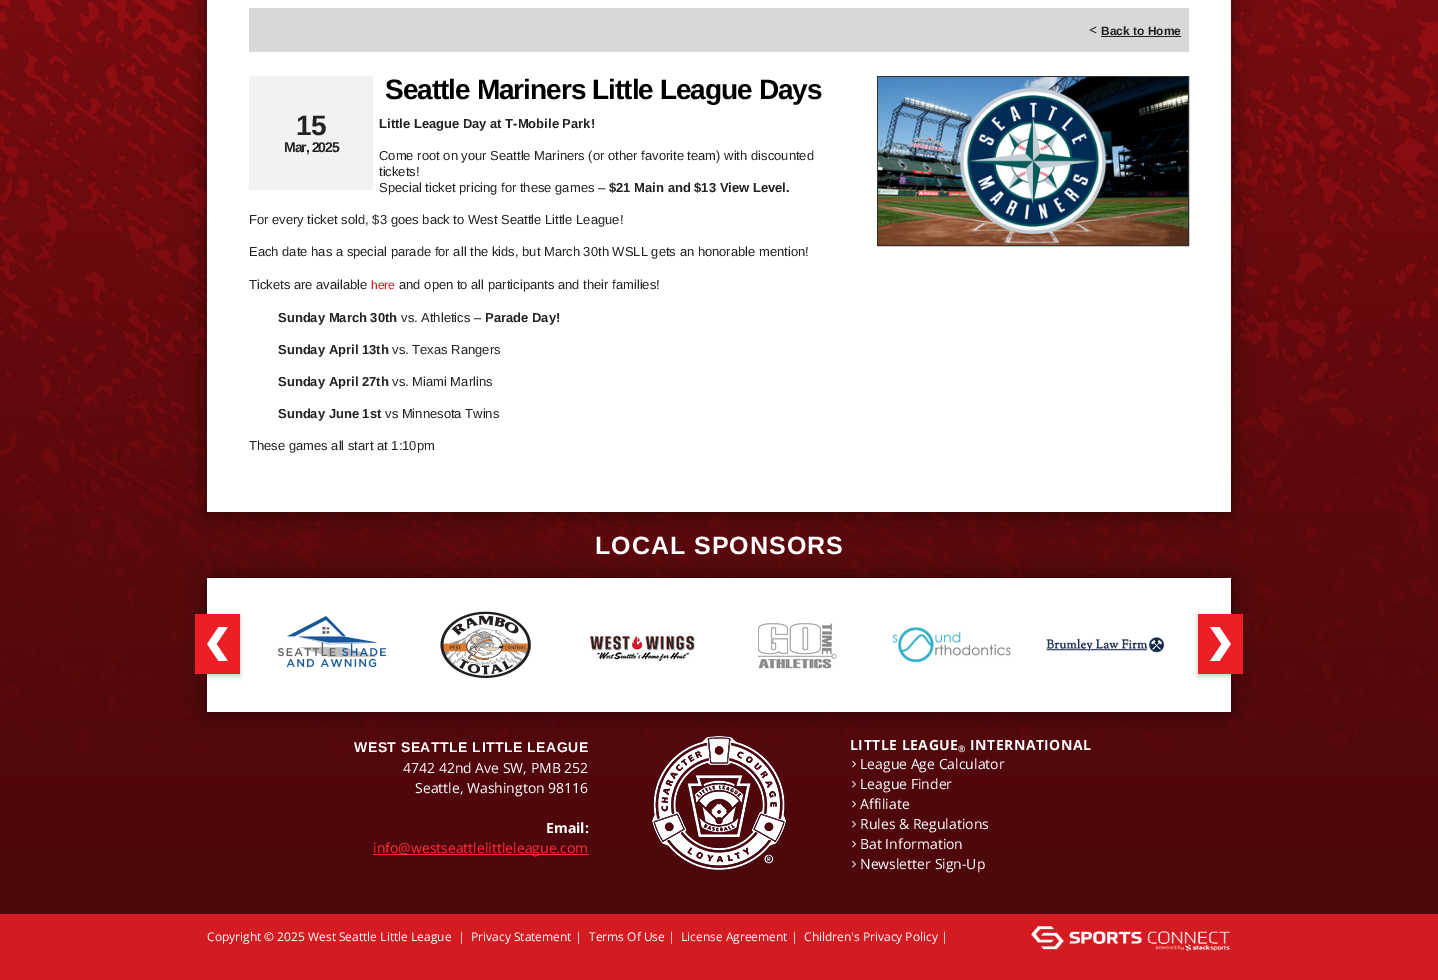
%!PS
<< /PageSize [1438 980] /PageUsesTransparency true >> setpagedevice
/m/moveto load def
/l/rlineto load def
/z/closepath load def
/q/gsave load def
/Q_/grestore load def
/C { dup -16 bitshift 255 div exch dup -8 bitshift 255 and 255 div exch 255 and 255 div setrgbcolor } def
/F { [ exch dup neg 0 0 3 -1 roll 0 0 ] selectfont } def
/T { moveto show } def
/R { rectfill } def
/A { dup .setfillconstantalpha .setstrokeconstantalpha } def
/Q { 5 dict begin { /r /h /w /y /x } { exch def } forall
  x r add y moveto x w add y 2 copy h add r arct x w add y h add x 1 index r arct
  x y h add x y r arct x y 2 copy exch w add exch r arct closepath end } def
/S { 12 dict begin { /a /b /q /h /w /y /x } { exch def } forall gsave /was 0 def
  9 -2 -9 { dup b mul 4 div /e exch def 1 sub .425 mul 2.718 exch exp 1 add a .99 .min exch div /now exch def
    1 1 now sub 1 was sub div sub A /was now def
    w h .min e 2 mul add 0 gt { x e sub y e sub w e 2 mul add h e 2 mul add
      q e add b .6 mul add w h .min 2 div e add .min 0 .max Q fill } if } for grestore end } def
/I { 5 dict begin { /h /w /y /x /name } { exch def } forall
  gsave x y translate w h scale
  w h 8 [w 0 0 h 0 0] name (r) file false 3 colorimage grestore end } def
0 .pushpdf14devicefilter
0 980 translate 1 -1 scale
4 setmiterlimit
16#FFFFFF C
0 0 1438 980 R
(1.rgb) 0 0 1438 914 I
207 0 1024 512 R
q
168 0 m 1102 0 l 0 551 l -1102 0 l z 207 -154 m 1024 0 l 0 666 l -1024 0 l z eoclip newpath
16#000000 C
207 -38 1024 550 0 12.5 .5 S
Q_
16#D8D8D8 C
249 8 940 44 R
/OpenSans-Regular 14 F
16#000000 C
(<) 1089 35 T
/LiberationSans-Bold 12 F
16#222222 C
(Back to Home) 1101 35 T
1101 36 80 1 R
/LiberationSans-Bold 28 F
16#000000 C
385 99 m -1 0 (Seattle Mariners Little League Days) ashow
16#303030 C
877.5 76.5 311 169 rectstroke
(2.rgb) 878 77 310 168 I
16#F2F2F2 C
249 76 124 114 R
16#222222 C
296 135 m -1 0 (15) ashow
/LiberationSans-Bold 14 F
284 152 m -1 0 (Mar, 2025) ashow
/LiberationSans-Bold 13 F
(Little League Day at T-Mobile Park!) 379 128 T
/LiberationSans-Regular 13 F
(Come root on your Seattle Mariners \(or other favorite team\) with discounted) 379 160 T
(tickets!) 379 176 T
(Special ticket pricing for these games –) 379 192 T
/LiberationSans-Bold 13 F
($21 Main and $13 View Level.) 609 192 T
/LiberationSans-Regular 13 F
(For every ticket sold, $3 goes back to West Seattle Little League!) 249 224 T
(Each date has a special parade for all the kids, but March 30th WSLL gets an honorable mention!) 249 256 T
(Tickets are available) 249 289 T
/LiberationSans-Regular 12 F
16#D41B22 C
(here) 371 289 T
/LiberationSans-Regular 13 F
16#222222 C
(and open to all participants and their families!) 399 289 T
/LiberationSans-Bold 13 F
(Sunday March 30th) 278 322 T
/LiberationSans-Regular 13 F
(vs. Athletics –) 401 322 T
/LiberationSans-Bold 13 F
(Parade Day!) 485 322 T
(Sunday April 13th) 278 354 T
/LiberationSans-Regular 13 F
(vs. Texas Rangers) 392 354 T
/LiberationSans-Bold 13 F
(Sunday April 27th) 278 386 T
/LiberationSans-Regular 13 F
(vs. Miami Marlins) 392 386 T
/LiberationSans-Bold 13 F
(Sunday June 1st) 278 418 T
/LiberationSans-Regular 13 F
(vs Minnesota Twins) 385 418 T
(These games all start at 1:10pm) 249 450 T
/LiberationSans-Bold 25 F
16#FFFFFF C
595 554 m 1 0 (LOCAL SPONSORS) ashow
(11.rgb) 652 736 134 134 I
16#000000 C
207 578 1024 134 0 12.5 .5 S
16#FFFFFF C
207 578 1024 134 R
16#323232 C
195 616 45 60 0 2.5 .26 S
16#ED1E26 C
195 614 45 60 R
(3.rgb) 207 627 21 34 I
(4.rgb) 278 616 109 52 I
(5.rgb) 440 611 91 67 I
(6.rgb) 590 635 105 27 I
(7.rgb) 758 623 79 46 I
(8.rgb) 892 627 119 36 I
(9.rgb) 1046 637 119 16 I
16#323232 C
1198 616 45 60 0 2.5 .26 S
16#ED1E26 C
1198 614 45 60 R
(10.rgb) 1210 627 21 34 I
/LiberationSans-Bold 14 F
16#FFFFFF C
354 752 m .5 0 (WEST SEATTLE LITTLE LEAGUE) ashow
/OpenSans-Regular 14 F
(4742 42nd Ave SW, PMB 252) 403 773 T
(Seattle, Washington 98116) 415 793 T
/OpenSans-Bold 14 F
(Email:) 546 833 T
16#FF2E36 C
373 854 216 1 R
/OpenSans-Regular 14 F
(info@westseattlelittleleague.com) 373 853 T
/OpenSans-Bold 14 F
16#FFFFFF C
850 750 m .5 0 (LITTLE LEAGUE) ashow
/OpenSans-Bold 9 F
958 752 m .5 0 (®) ashow
/OpenSans-Bold 14 F
970 750 m .5 0 (INTERNATIONAL) ashow
(12.rgb) 852 760 4 8 I
/OpenSans-Regular 14 F
(League Age Calculator) 860 769 T
(13.rgb) 852 780 4 8 I
(League Finder) 860 789 T
(14.rgb) 852 800 4 8 I
(Affiliate) 860 809 T
(14.rgb) 852 820 4 8 I
(Rules & Regulations) 860 829 T
(14.rgb) 852 840 4 8 I
(Bat Information) 860 849 T
(15.rgb) 852 860 4 8 I
(Newsletter Sign-Up) 860 869 T
16#D41B21 C
0 914 1438 66 R
/OpenSans-Regular 12 F
16#FFFFFF C
(Copyright © 2025 West Seattle Little League) 207 941 T
(|) 458 941 T
(Privacy Statement |) 471 941 T
(Terms Of Use |) 589 941 T
(License Agreement |) 681 941 T
(Children's Privacy Policy |) 804 941 T
(16.rgb) 1031 926 200 25 I
.poppdf14devicefilter showpage
